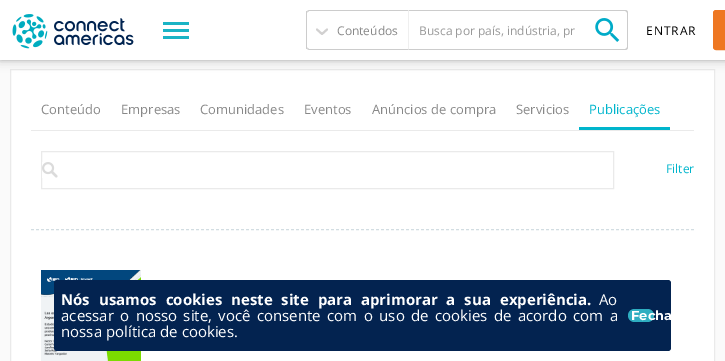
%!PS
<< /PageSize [725 361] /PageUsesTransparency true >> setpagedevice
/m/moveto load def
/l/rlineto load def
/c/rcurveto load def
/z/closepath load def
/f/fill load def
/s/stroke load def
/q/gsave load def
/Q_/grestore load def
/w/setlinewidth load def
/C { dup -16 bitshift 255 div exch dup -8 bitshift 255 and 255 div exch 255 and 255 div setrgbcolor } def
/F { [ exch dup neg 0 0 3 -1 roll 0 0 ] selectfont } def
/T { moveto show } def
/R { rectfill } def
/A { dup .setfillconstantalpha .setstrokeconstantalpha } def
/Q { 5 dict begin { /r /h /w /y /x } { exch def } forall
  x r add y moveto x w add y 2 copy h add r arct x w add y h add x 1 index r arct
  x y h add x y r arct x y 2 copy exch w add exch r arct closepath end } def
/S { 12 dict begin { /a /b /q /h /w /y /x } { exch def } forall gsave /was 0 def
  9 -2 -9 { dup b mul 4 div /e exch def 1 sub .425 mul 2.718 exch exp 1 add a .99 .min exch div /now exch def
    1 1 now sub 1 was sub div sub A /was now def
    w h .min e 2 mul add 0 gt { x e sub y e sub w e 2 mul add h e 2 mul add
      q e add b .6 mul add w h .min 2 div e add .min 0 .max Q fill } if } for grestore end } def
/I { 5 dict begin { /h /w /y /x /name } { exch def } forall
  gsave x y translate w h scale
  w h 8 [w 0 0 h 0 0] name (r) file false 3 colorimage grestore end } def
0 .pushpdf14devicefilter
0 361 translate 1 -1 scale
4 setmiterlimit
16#FAFAFA C
0 0 725 361 R
16#000000 C
0 1 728 60 0 1 .1 S
16#FFFFFF C
10.5 69.5 m 704 0 l 0 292 l -704 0 l z q f Q_
16#EAEAEA C
s
16#000000 C
0 2 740 60 0 5 .16 S
16#FFFFFF C
0 0 725 60 R
(1.rgb) 12 14 122 35 I
16#1AB4C5 C
163 22 26 3 R
163 29 26 3 R
163 36 26 3 R
16#D1D0D0 C
2 w
1 setlinecap
1 setlinejoin
317 29.5 m 5 4.5 l 5 -4.5 l s
16#CCCCCC C
309 10 m -2 1 l 1 1 l 1 -1 l 99 0 l 1 -1 l z f
16#EFEFEF C
409 10 m -1 1 l 0 38 l 1 1 l z f
16#CCCCCC C
409 50 m -1 -1 l -99 0 l -1 -1 l -1 1 l 2 1 l z f
306 13 m 0 34 l 0 1 0 2 1 2 c .5 -.5 l -.5 -1.5 l 0 -34 l .5 -1.5 l -.5 -.5 l -1 0 -1 1 -1 2 c z f
/OpenSans-Regular 12 F
16#888888 C
(Conteúdos) 337 35 T
16#CCCCCC C
409 10 178 1 R
409 49 178 1 R
16#999999 C
(Busca por país, indústria, pr) 419 35 T
(2.rgb) 595 18 25 24 I
16#CCCCCC C
587 10 m 38 0 l 2 0 3 1 3 3 c 0 34 l 0 2 -1 3 -3 3 c -38 0 l z 587 11 m 38 0 l 1 0 2 1 2 2 c 0 34 l 0 1 -1 2 -2 2 c -38 0 l z eofill
16#000000 C
646 35 m 1 0 (ENTRAR) ashow
16#EE7722 C
713.5 10.5 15 39 2.5 Q q f Q_
1 w
0 setlinecap
0 setlinejoin
s
16#EAEAEA C
31 130 663 1 R
/OpenSans-Regular 13 F
16#888888 C
(Conteúdo) 41 114 T
(Empresas) 121 114 T
(Comunidades) 200 114 T
(Eventos) 304 114 T
(Anúncios de compra) 372 114 T
(Servicios) 516 114 T
16#00B5CC C
579 127 91 3 R
(Publicações) 589 114 T
16#D2DDE2 C
[3 2] 0 setdash
31 229.5 m 663 0 l s
16#EAEAEA C
[] 0 setdash
41.5 151.5 572 37 rectstroke
(3.rgb) 42 162 16 16 I
/OpenSans-Regular 12 F
16#00B5CC C
(Filter) 666 173 T
(4.rgb) 41 270 100 91 I
16#032350 C
54 280 617 71 3 Q f
/OpenSans-Bold 15 F
16#FFFFFF C
61 305 m 5 0 32 (Nós usamos cookies neste site para aprimorar a sua experiência.) widthshow
/OpenSans-Regular 15 F
(Ao) 599 305 T
61 321 m 2.5 0 32 (acessar o nosso site, você consente com o uso de cookies de acordo com a) widthshow
(nossa política de cookies.) 61 337 T
16#2EAEC1 C
628 309 26 13 6.5 Q f
/Montserrat-Bold 13 F
16#FFFFFF C
(Fecha) 631 320 T
.poppdf14devicefilter showpage
